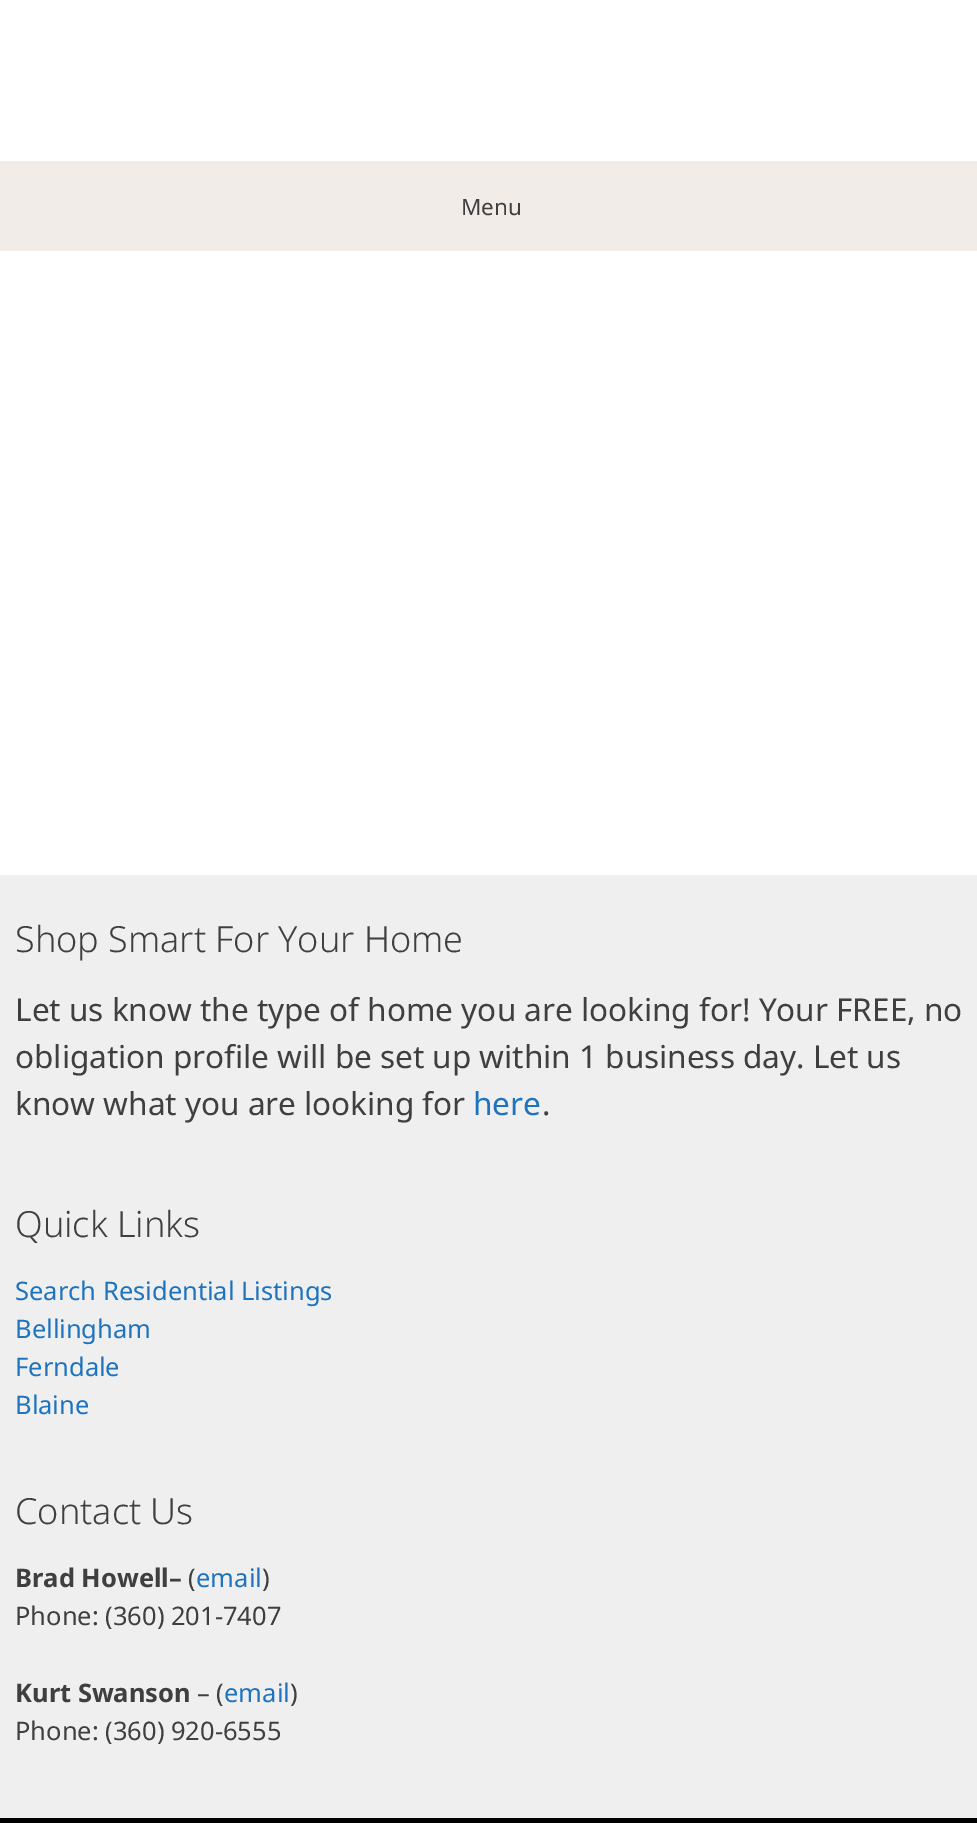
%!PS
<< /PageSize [977 1823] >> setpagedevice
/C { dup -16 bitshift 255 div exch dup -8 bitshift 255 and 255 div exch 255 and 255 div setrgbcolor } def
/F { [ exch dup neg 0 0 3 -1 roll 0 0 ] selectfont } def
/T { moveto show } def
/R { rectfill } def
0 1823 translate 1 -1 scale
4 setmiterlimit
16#FFFFFF C
0 0 977 1823 R
16#F1ECE8 C
0 161 977 90 R
/NotoSans-Regular 22.5 F
16#3F3F3F C
(Menu) 461 215 T
16#EFEFEF C
0 875 977 943 R
/NotoSans-Light 36 F
16#3F3F3F C
(Shop Smart For Your Home) 15 952 T
/NotoSans-Regular 31.5 F
(Let us know the type of home you are looking for! Your FREE, no) 15 1021 T
(obligation profile will be set up within 1 business day. Let us) 15 1068 T
(know what you are looking for) 15 1115 T
16#1E73BE C
(here) 473 1115 T
16#3F3F3F C
(.) 542 1115 T
/NotoSans-Light 36 F
(Quick Links) 15 1237 T
/NotoSans-Regular 25.5 F
16#1E73BE C
(Search Residential Listings) 15 1300 T
(Bellingham) 15 1338 T
(Ferndale) 15 1376 T
(Blaine) 15 1414 T
/NotoSans-Light 36 F
16#3F3F3F C
(Contact Us) 15 1524 T
/NotoSans-Bold 25.5 F
(Brad Howell–) 15 1587 T
/NotoSans-Regular 25.5 F
(\() 188 1587 T
16#1E73BE C
(email) 196 1587 T
16#3F3F3F C
(\)) 262 1587 T
(Phone: \(360\) 201-7407) 15 1625 T
/NotoSans-Bold 25.5 F
(Kurt Swanson) 15 1702 T
/NotoSans-Regular 25.5 F
(– \() 197 1702 T
16#1E73BE C
(email) 224 1702 T
16#3F3F3F C
(\)) 290 1702 T
(Phone: \(360\) 920-6555) 15 1740 T
16#000000 C
0 1818 977 5 R
showpage
